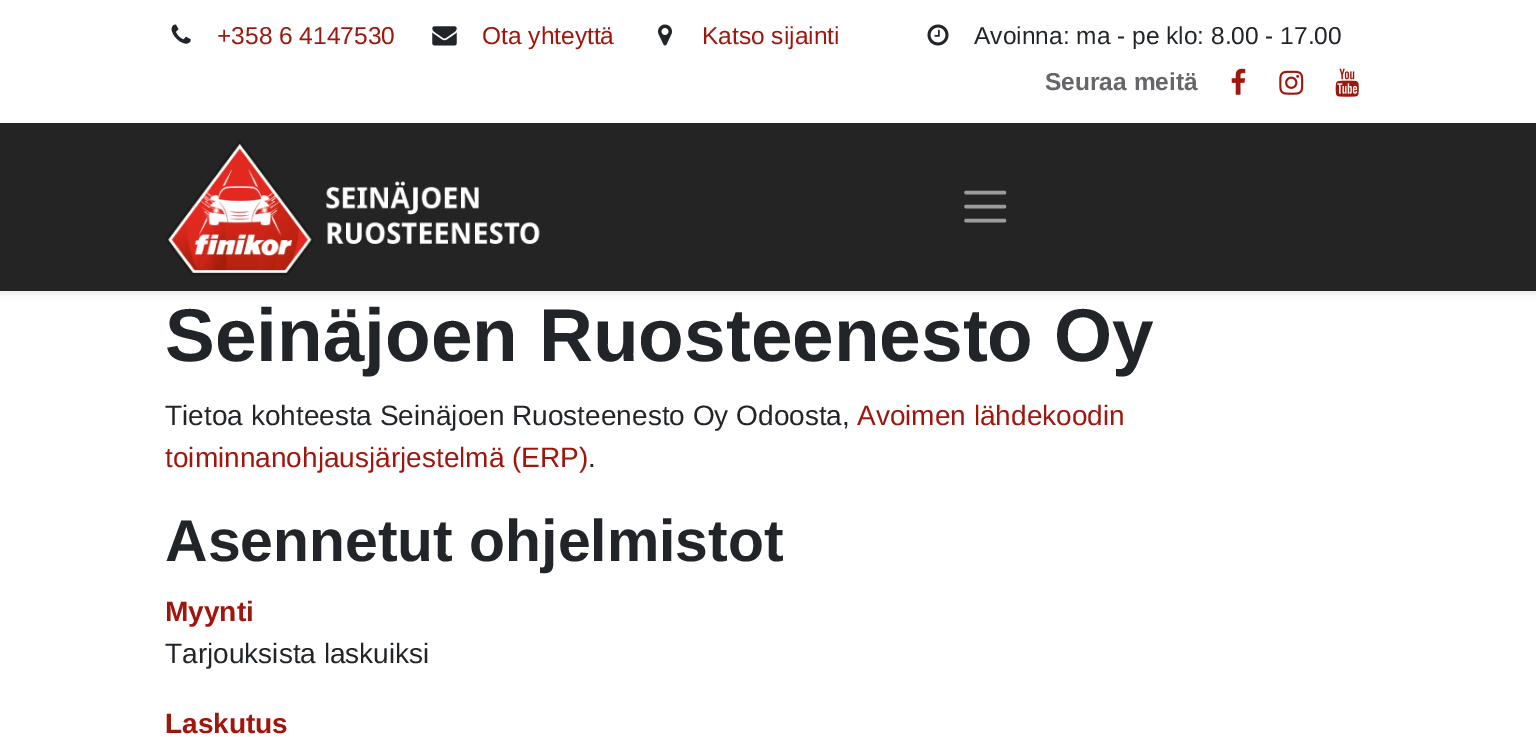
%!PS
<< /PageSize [1536 737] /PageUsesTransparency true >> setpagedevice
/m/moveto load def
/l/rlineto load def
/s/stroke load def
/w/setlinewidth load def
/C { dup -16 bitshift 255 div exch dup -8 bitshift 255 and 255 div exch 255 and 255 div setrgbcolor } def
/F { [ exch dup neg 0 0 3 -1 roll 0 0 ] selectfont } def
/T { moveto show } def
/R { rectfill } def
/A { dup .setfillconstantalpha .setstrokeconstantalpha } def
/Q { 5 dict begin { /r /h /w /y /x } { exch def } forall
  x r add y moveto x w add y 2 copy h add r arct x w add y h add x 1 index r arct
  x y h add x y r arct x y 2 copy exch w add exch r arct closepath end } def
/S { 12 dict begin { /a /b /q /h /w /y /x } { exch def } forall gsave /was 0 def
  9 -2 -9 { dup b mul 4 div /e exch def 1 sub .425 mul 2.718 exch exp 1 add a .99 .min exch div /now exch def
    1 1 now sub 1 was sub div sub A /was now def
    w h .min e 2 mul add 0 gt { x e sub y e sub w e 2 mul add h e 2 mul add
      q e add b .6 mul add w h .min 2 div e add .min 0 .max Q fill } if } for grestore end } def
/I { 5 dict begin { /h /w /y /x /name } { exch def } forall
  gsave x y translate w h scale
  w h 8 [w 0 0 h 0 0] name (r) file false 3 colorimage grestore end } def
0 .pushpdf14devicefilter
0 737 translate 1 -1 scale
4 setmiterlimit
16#FFFFFF C
0 0 1536 737 R
(1.rgb) 171 24 20 20 I
/LiberationSans-Regular 24.5 F
16#9E160D C
(+358 6 4147530) 217 44 T
(2.rgb) 432 26 25 20 I
(Ota yhteyttä) 482 44 T
(3.rgb) 658 24 14 22 I
(Katso sijainti) 702 44 T
(4.rgb) 927 24 22 22 I
16#212529 C
(Avoinna: ma - pe klo: 8.00 - 17.00) 974 44 T
/LiberationSans-Bold 24.5 F
16#646669 C
(Seuraa meitä) 1045 90 T
(5.rgb) 1231 68 15 27 I
(6.rgb) 1279 70 25 25 I
(7.rgb) 1335 68 24 29 I
16#000000 C
0 126 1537 168 0 3.5 .07 S
16#242424 C
0 123 1536 168 R
(8.rgb) 165 140 375 136 I
16#9C9C9C C
3.5 w
1 setlinecap
966 192.5 m 38.5 0 l 966 206.5 m 38.5 0 l 966 220.5 m 38.5 0 l s
/LiberationSans-Bold 74.75 F
16#212529 C
(Seinäjoen Ruosteenesto Oy) 165 361 T
/LiberationSans-Regular 28 F
(Tietoa kohteesta Seinäjoen Ruosteenesto Oy Odoosta,) 165 425 T
16#9E160D C
(Avoimen lähdekoodin) 857 425 T
(toiminnanohjausjärjestelmä \(ERP\)) 165 467 T
16#212529 C
(.) 588 467 T
/LiberationSans-Bold 58.9 F
(Asennetut ohjelmistot) 165 561 T
/LiberationSans-Bold 28 F
16#9E160D C
(Myynti) 165 621 T
/LiberationSans-Regular 28 F
16#212529 C
(Tarjouksista laskuiksi) 165 663 T
/LiberationSans-Bold 28 F
16#9E160D C
(Laskutus) 165 733 T
.poppdf14devicefilter showpage
